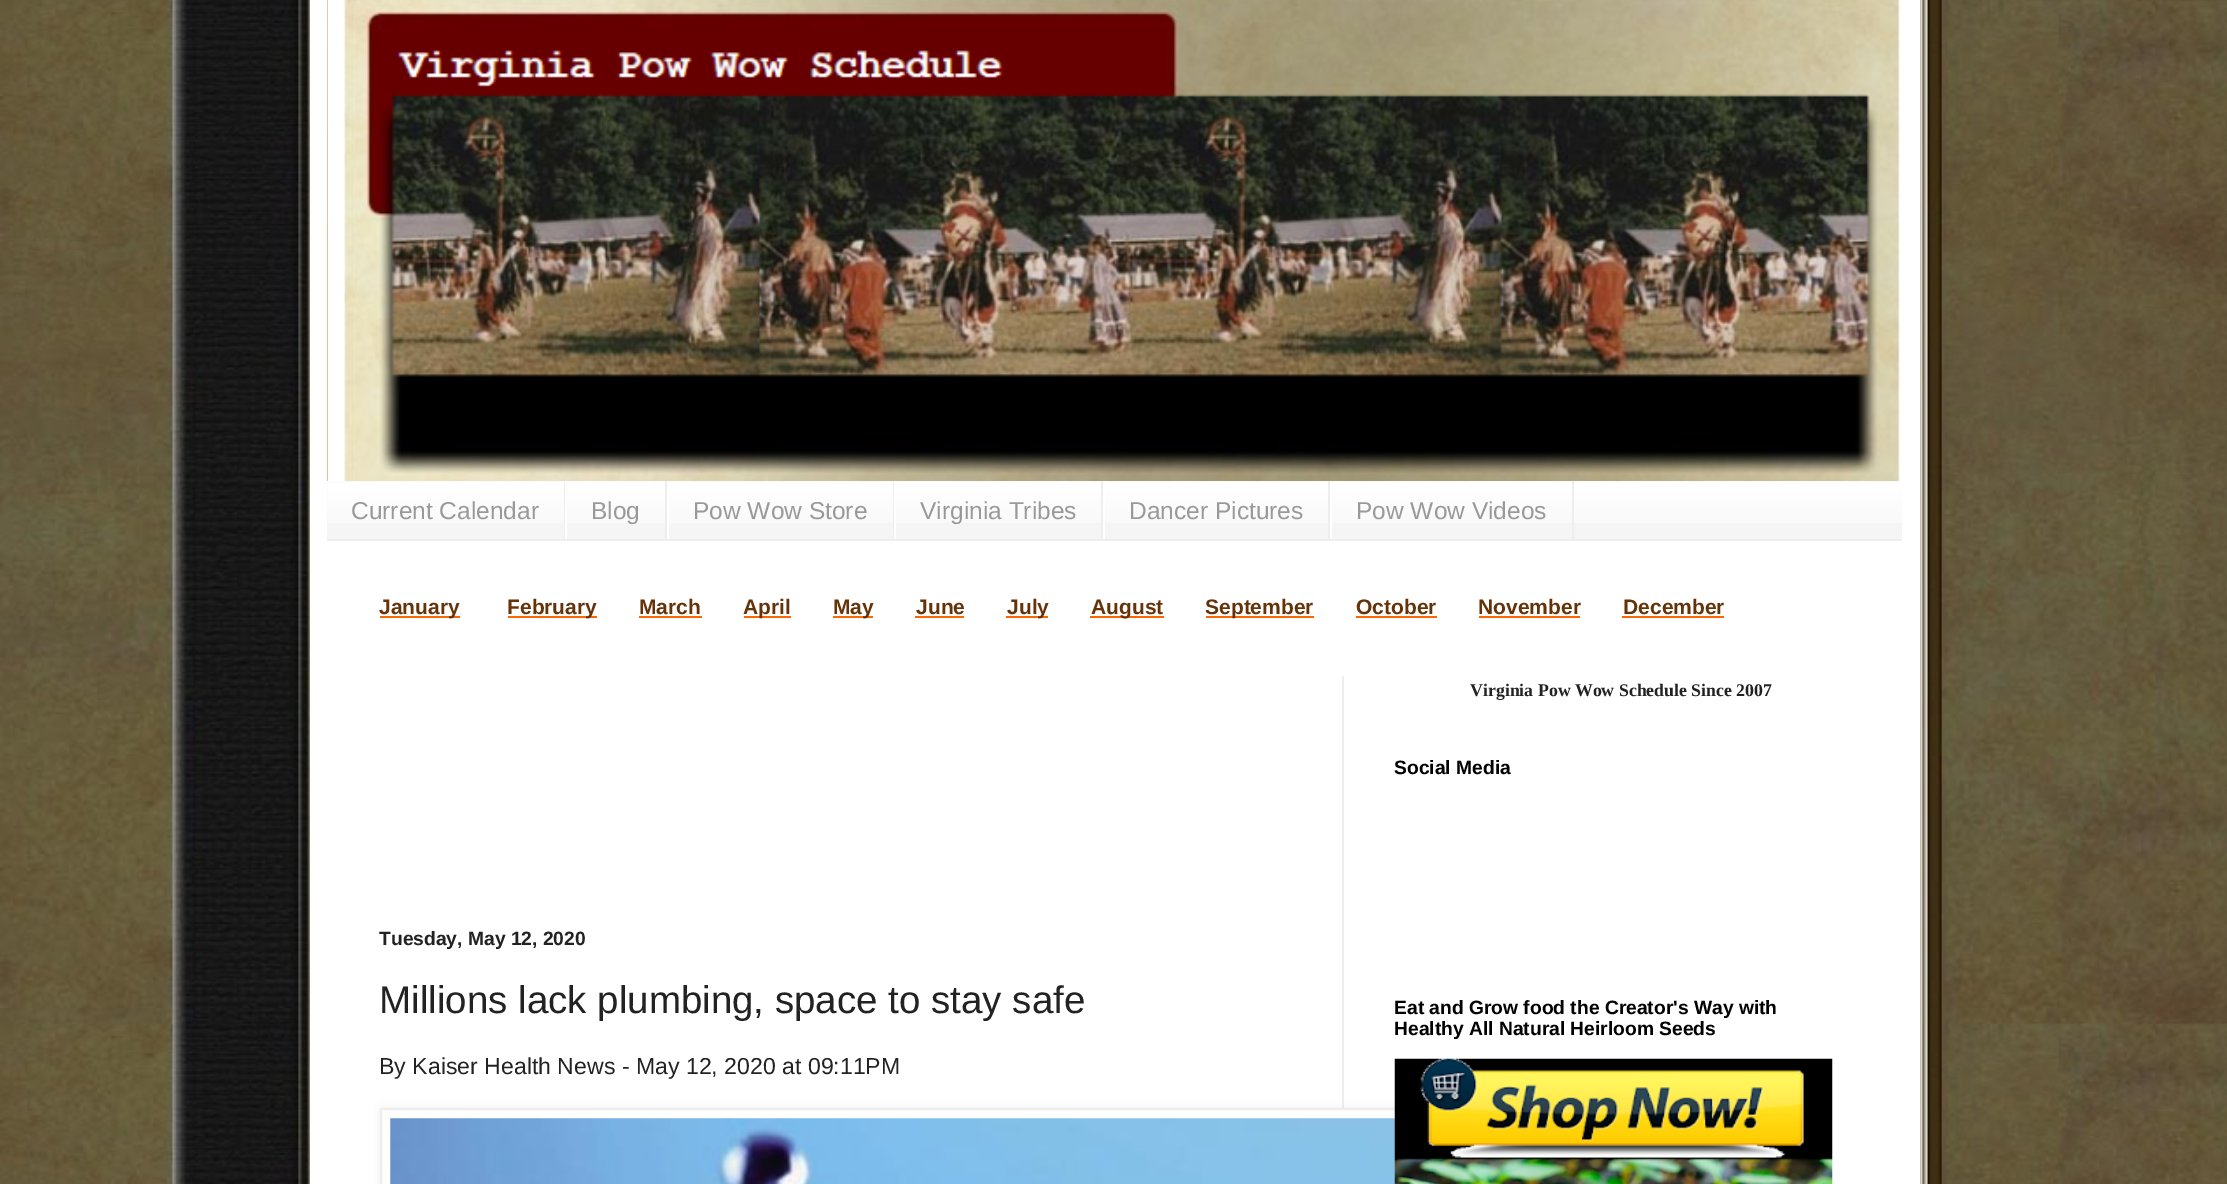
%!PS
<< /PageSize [2227 1184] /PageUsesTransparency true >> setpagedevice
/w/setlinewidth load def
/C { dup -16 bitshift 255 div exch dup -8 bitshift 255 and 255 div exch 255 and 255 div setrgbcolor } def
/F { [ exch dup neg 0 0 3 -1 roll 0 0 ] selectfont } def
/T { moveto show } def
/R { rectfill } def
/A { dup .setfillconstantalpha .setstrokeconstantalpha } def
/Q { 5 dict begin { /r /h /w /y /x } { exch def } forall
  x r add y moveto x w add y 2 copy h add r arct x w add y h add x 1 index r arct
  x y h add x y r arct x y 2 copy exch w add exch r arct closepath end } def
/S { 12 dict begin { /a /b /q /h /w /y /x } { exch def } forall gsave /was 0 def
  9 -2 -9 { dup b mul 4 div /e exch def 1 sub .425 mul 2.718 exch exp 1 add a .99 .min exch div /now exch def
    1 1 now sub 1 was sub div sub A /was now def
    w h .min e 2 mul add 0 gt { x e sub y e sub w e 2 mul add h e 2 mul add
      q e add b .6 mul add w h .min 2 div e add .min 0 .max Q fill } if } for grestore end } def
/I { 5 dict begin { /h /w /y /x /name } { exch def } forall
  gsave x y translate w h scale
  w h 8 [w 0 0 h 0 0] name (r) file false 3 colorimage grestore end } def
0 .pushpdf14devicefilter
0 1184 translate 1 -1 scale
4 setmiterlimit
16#FFFFFF C
0 0 2227 1184 R
(1.rgb) 0 0 2227 1184 I
16#000000 C
310 -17 1610 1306 0 35 .15 S
16#FFFFFF C
310 0 1610 1184 R
16#CC6611 C
327 0 1 481 R
(2.rgb) 327 0 1 223 I
(3.rgb) 327 0 1575 481 I
16#F5F5F5 C
327 481 1575 58 R
(4.rgb) 327 481 1575 42 I
16#EEEEEE C
327 539 1575 2 R
564 481 1 58 R
/LiberationSans-Regular 24.5 F
16#999999 C
(Current Calendar) 351 519 T
16#EEEEEE C
665 481 2 58 R
16#FFFFFF C
565 481 2 58 R
16#999999 C
(Blog) 591 519 T
16#EEEEEE C
893 481 1 58 R
16#FFFFFF C
667 481 2 58 R
16#999999 C
(Pow Wow Store) 693 519 T
16#EEEEEE C
1101 481 2 58 R
16#FFFFFF C
894 481 2 58 R
16#999999 C
(Virginia Tribes) 920 519 T
16#EEEEEE C
1328 481 2 58 R
16#FFFFFF C
1103 481 2 58 R
16#999999 C
(Dancer Pictures) 1129 519 T
16#EEEEEE C
1572 481 2 58 R
16#FFFFFF C
1330 481 2 58 R
16#999999 C
(Pow Wow Videos) 1356 519 T
16#FF6600 C
380 616 80 2 R
/LiberationSans-Bold 21 F
16#663208 C
(January) 379 614 T
16#FF6600 C
508 616 89 2 R
16#663208 C
(February) 507 614 T
(March) 639 614 T
16#FF6600 C
639 616 63 2 R
744 616 47 2 R
16#663208 C
(April) 743 614 T
16#FF6600 C
833 616 40 2 R
16#663208 C
(May) 833 614 T
(June) 916 614 T
16#FF6600 C
915 616 49 2 R
1006 616 42 2 R
16#663208 C
(July) 1007 614 T
16#FF6600 C
1090 616 74 2 R
16#663208 C
(August) 1091 614 T
16#FF6600 C
1206 616 108 2 R
16#663208 C
(September) 1205 614 T
(October) 1356 614 T
16#FF6600 C
1356 616 81 2 R
16#663208 C
(November) 1478 614 T
16#FF6600 C
1479 616 101 2 R
16#663208 C
(December) 1623 614 T
16#FF6600 C
1622 616 102 2 R
16#EEEEEE C
1342 676 2 432 R
/LiberationSans-Bold 19.25 F
16#222222 C
(Tuesday, May 12, 2020) 379 945 T
/LiberationSans-Regular 38.5 F
(Millions lack plumbing, space to stay safe) 379 1013 T
/LiberationSans-Regular 23.1 F
(By Kaiser Health News - May 12, 2020 at 09:11PM) 379 1074 T
16#000000 C
382 1110 1071 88 0 4.5 .1 S
16#FFFFFF C
382 1110 1013 74 R
16#EEEEEE C
2 w
381 1109 1069 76 rectstroke
(5.rgb) 390 1118 1005 66 I
/LiberationSerif-Bold 17.8 F
16#222222 C
(Virginia Pow Wow Schedule Since 2007) 1470 696 T
/LiberationSans-Bold 19.25 F
16#000000 C
(Social Media) 1394 774 T
(Eat and Grow food the Creator's Way with) 1394 1014 T
(Healthy All Natural Heirloom Seeds) 1394 1035 T
(6.rgb) 1394 1058 439 126 I
.poppdf14devicefilter showpage
